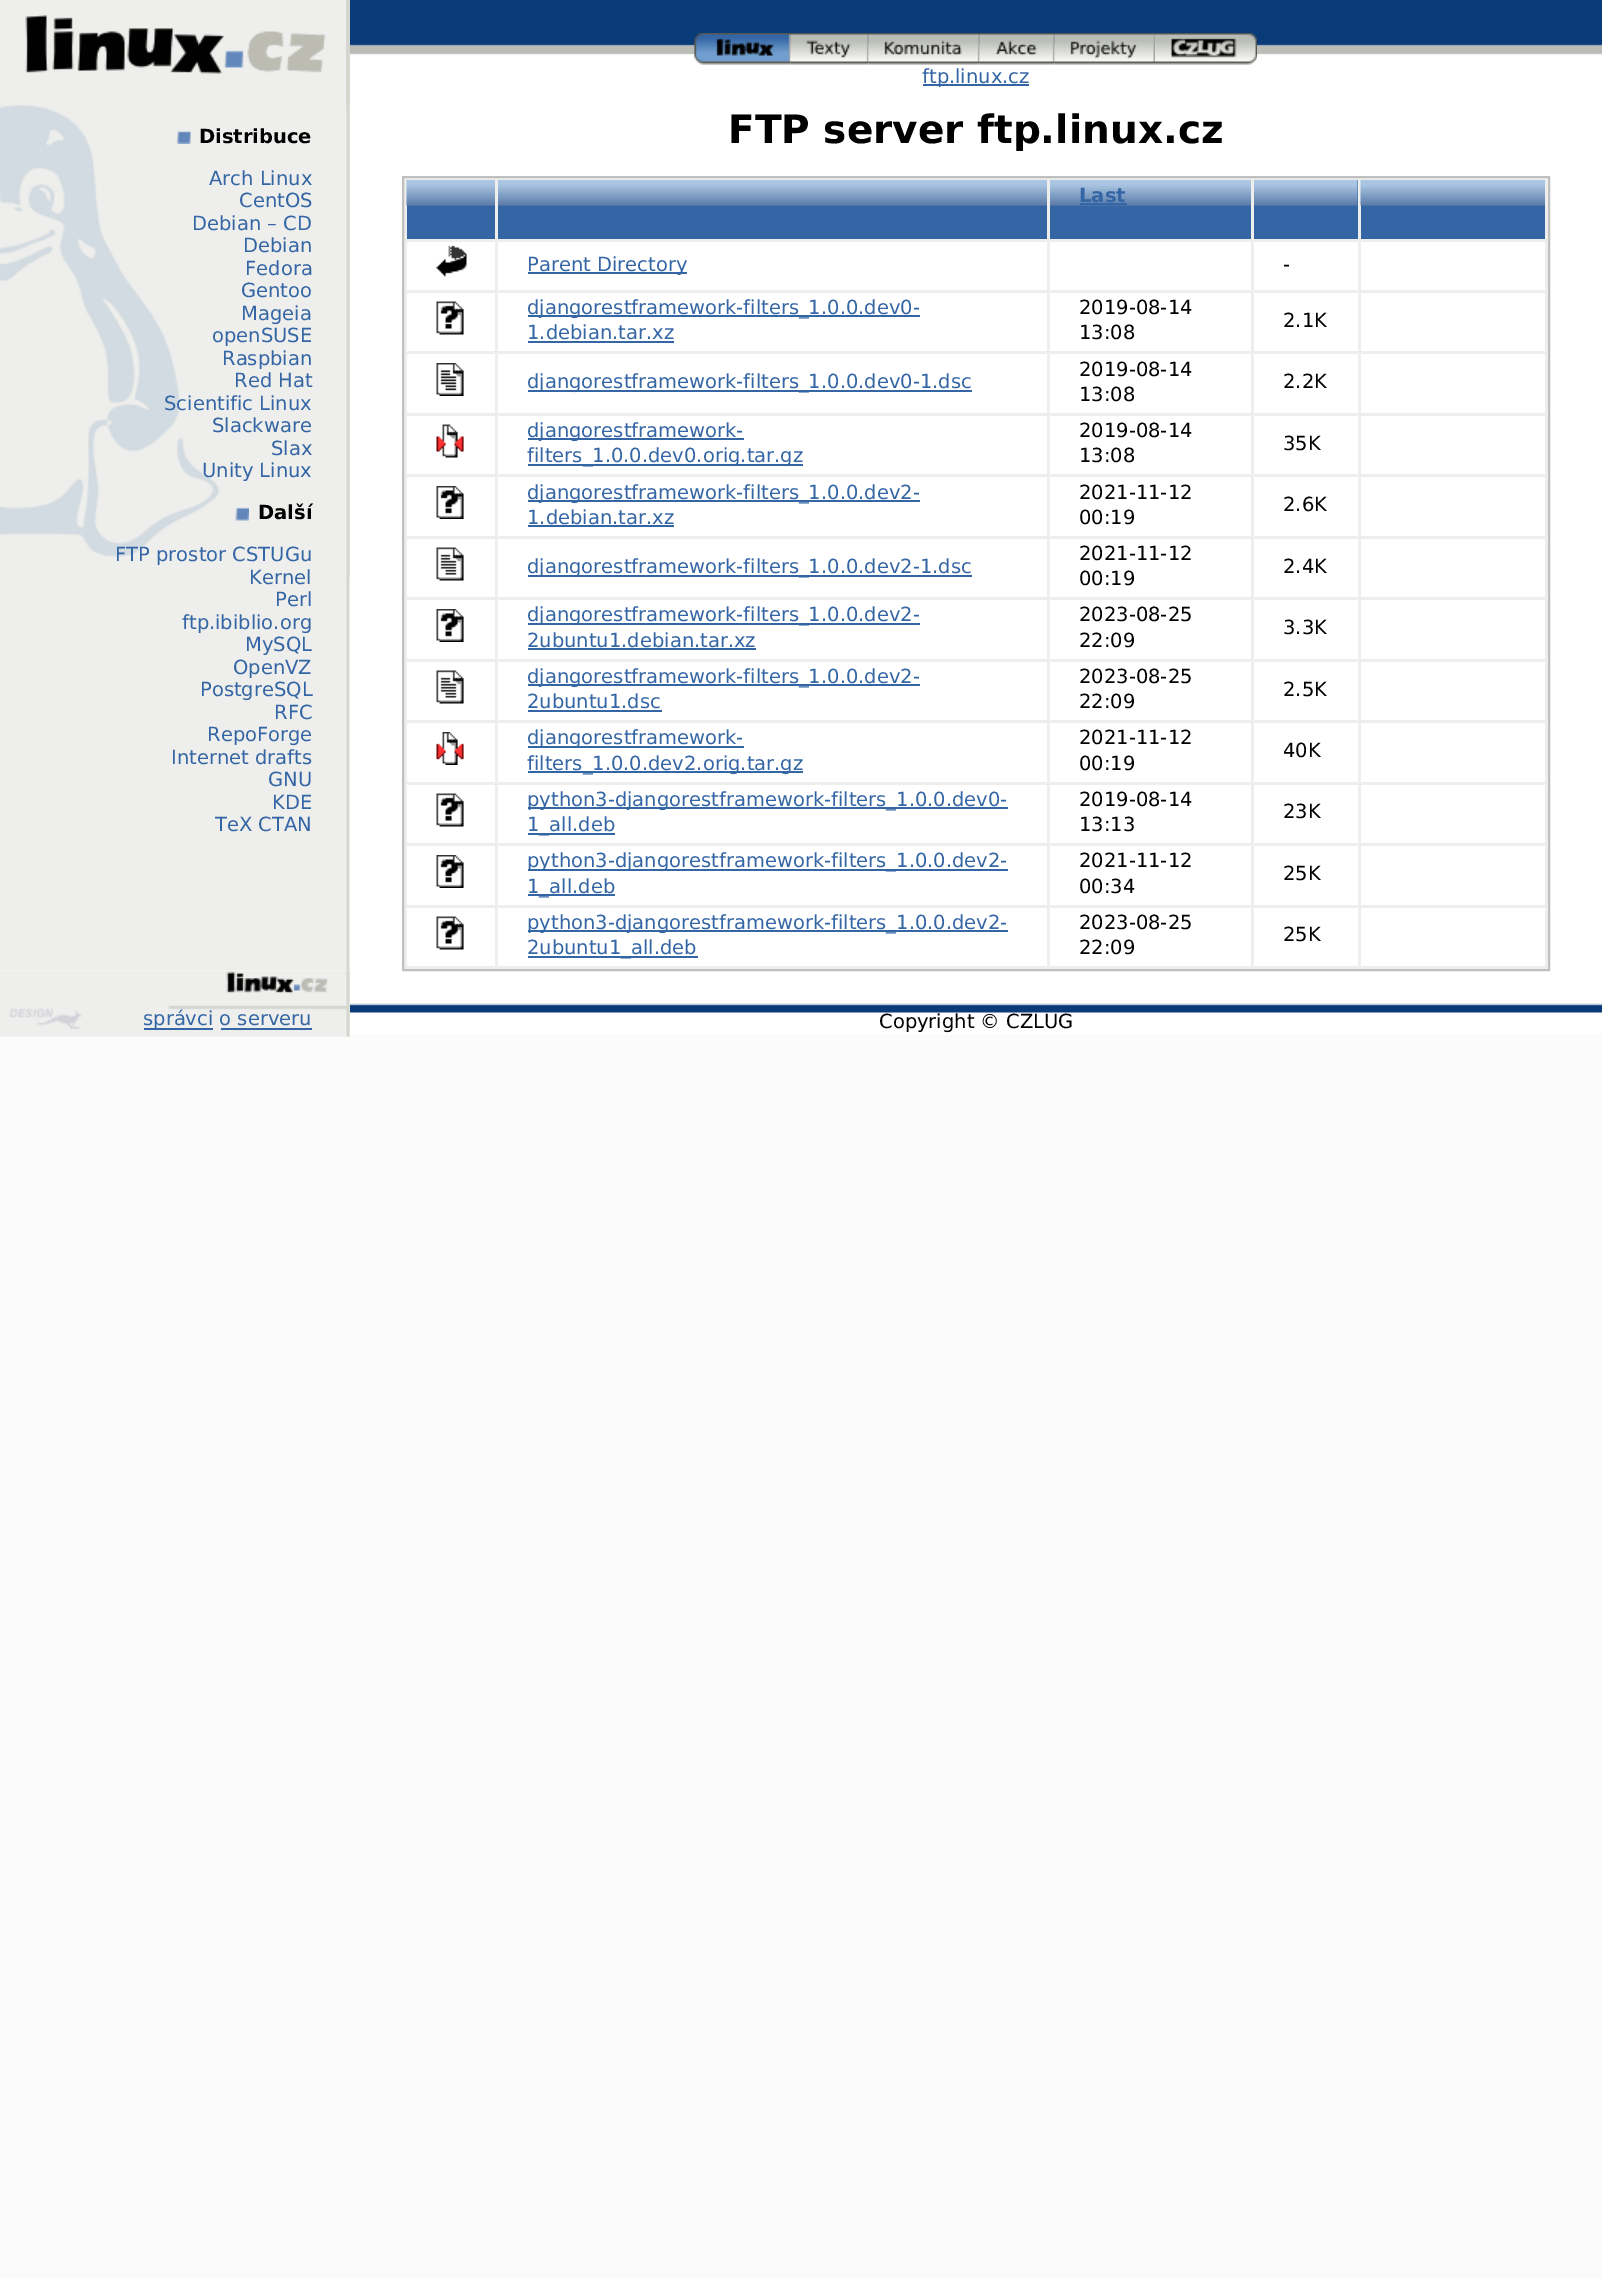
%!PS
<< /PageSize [1602 2279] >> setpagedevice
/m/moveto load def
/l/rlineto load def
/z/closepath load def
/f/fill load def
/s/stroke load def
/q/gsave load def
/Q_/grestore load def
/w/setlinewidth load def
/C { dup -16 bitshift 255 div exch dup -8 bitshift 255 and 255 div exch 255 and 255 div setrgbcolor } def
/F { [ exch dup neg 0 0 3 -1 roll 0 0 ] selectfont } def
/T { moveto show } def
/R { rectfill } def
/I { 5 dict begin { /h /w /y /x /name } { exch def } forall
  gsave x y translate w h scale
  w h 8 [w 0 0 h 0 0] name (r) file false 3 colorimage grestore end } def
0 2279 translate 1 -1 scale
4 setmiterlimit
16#FBFBFB C
0 0 1602 2279 R
16#FFFFFF C
349 105 1253 866 R
(1.rgb) 0 105 350 866 I
350 55 1252 50 R
(2.rgb) 350 0 1252 55 I
16#EEEEEC C
0 0 346 105 R
16#D3D7CF C
346 0 4 105 R
(3.rgb) 25 15 301 59 I
(4.rgb) 694 33 97 32 I
(6.rgb) 790 33 79 32 I
(5.rgb) 694 33 97 32 I
(8.rgb) 868 33 112 32 I
(7.rgb) 790 33 79 32 I
(10.rgb) 979 33 76 32 I
(9.rgb) 868 33 112 32 I
(12.rgb) 1054 33 101 32 I
(11.rgb) 979 33 76 32 I
(13.rgb) 1054 34 101 31 I
(14.rgb) 1155 33 102 32 I
(15.rgb) 1155 36 96 29 I
16#3465A4 C
923 84 106 2 R
/DejaVuSans-Regular 19.5 F
(ftp.linux.cz) 922 83 T
(16.rgb) 0 105 350 473 I
(17.rgb) 177 130 14 14 I
/DejaVuSans-Bold 19.5 F
16#000000 C
(Distribuce) 199 143 T
/DejaVuSans-Regular 19.5 F
16#3465A4 C
(Arch Linux) 209 185 T
(CentOS) 239 207 T
(Debian – CD) 192 230 T
(Debian) 243 252 T
(Fedora) 245 275 T
(Gentoo) 241 297 T
(Mageia) 241 320 T
(openSUSE) 212 342 T
(Raspbian) 222 365 T
(Red Hat) 234 387 T
(Scientific Linux) 164 410 T
(Slackware) 212 432 T
(Slax) 271 455 T
(Unity Linux) 202 477 T
(18.rgb) 235 507 14 14 I
/DejaVuSans-Bold 19.5 F
16#000000 C
(Další) 258 519 T
/DejaVuSans-Regular 19.5 F
16#3465A4 C
(FTP prostor CSTUGu) 115 561 T
(Kernel) 249 584 T
(Perl) 275 606 T
(ftp.ibiblio.org) 182 629 T
(MySQL) 245 651 T
(OpenVZ) 233 674 T
(PostgreSQL) 200 696 T
(RFC) 274 719 T
(RepoForge) 207 741 T
(Internet drafts) 171 764 T
(GNU) 268 786 T
(KDE) 272 809 T
(TeX CTAN) 215 831 T
/DejaVuSans-Bold 39 F
16#000000 C
(FTP server ftp.linux.cz) 728 143 T
(31.rgb) 0 970 1602 43 I
16#EEEEEC C
403 177 m 1146 0 l 0 793 l -1146 0 l z q f Q_
16#C0C0C0 C
2 w
s
16#3465A4 C
407 205 88 34 R
(19.rgb) 406 180 89 26 I
498 205 549 34 R
(20.rgb) 498 180 549 26 I
1050 205 201 34 R
(21.rgb) 1050 180 201 26 I
/DejaVuSans-Bold 19.5 F
(Last) 1079 202 T
1080 203 47 2 R
1254 180 104 59 R
(22.rgb) 1254 180 104 26 I
1361 205 184 34 R
(23.rgb) 1360 180 185 26 I
16#FFFFFF C
407 242 88 48 R
(24.rgb) 436 245 31 32 I
498 242 549 48 R
16#3465A4 C
528 272 159 2 R
/DejaVuSans-Regular 19.5 F
(Parent Directory) 527 271 T
16#FFFFFF C
1050 242 201 48 R
1254 242 104 48 R
16#000000 C
(-) 1283 271 T
16#FFFFFF C
1361 242 184 48 R
407 293 88 58 R
(25.rgb) 436 301 28 34 I
498 293 549 58 R
16#3465A4 C
528 315 392 2 R
(djangorestframework-filters_1.0.0.dev0-) 527 314 T
(1.debian.tar.xz) 527 339 T
528 341 146 2 R
16#FFFFFF C
1050 293 201 58 R
16#000000 C
(2019-08-14) 1079 314 T
(13:08) 1079 339 T
16#FFFFFF C
1254 293 104 58 R
16#000000 C
(2.1K) 1283 327 T
16#FFFFFF C
1361 293 184 58 R
407 354 88 59 R
(26.rgb) 436 363 28 33 I
498 354 549 59 R
16#3465A4 C
528 390 444 2 R
(djangorestframework-filters_1.0.0.dev0-1.dsc) 527 388 T
16#FFFFFF C
1050 354 201 59 R
16#000000 C
(2019-08-14) 1079 376 T
(13:08) 1079 401 T
16#FFFFFF C
1254 354 104 59 R
16#000000 C
(2.2K) 1283 388 T
16#FFFFFF C
1361 354 184 59 R
407 416 88 58 R
(27.rgb) 436 424 28 34 I
498 416 549 58 R
16#3465A4 C
528 438 216 2 R
(djangorestframework-) 527 437 T
528 464 275 2 R
(filters_1.0.0.dev0.orig.tar.gz) 527 462 T
16#FFFFFF C
1050 416 201 58 R
16#000000 C
(2019-08-14) 1079 437 T
(13:08) 1079 462 T
16#FFFFFF C
1254 416 104 58 R
16#000000 C
(35K) 1283 450 T
16#FFFFFF C
1361 416 184 58 R
407 477 88 59 R
(28.rgb) 436 486 28 33 I
498 477 549 59 R
16#3465A4 C
528 500 392 2 R
(djangorestframework-filters_1.0.0.dev2-) 527 499 T
(1.debian.tar.xz) 527 524 T
528 525 146 2 R
16#FFFFFF C
1050 477 201 59 R
16#000000 C
(2021-11-12) 1079 499 T
(00:19) 1079 524 T
16#FFFFFF C
1254 477 104 59 R
16#000000 C
(2.6K) 1283 511 T
16#FFFFFF C
1361 477 184 59 R
407 539 88 58 R
(29.rgb) 436 547 28 34 I
498 539 549 58 R
16#3465A4 C
528 575 444 2 R
(djangorestframework-filters_1.0.0.dev2-1.dsc) 527 573 T
16#FFFFFF C
1050 539 201 58 R
16#000000 C
(2021-11-12) 1079 560 T
(00:19) 1079 585 T
16#FFFFFF C
1254 539 104 58 R
16#000000 C
(2.4K) 1283 573 T
16#FFFFFF C
1361 539 184 58 R
407 600 88 59 R
(28.rgb) 436 609 28 33 I
498 600 549 59 R
16#3465A4 C
528 623 392 2 R
(djangorestframework-filters_1.0.0.dev2-) 527 621 T
(2ubuntu1.debian.tar.xz) 527 647 T
528 648 228 2 R
16#FFFFFF C
1050 600 201 59 R
16#000000 C
(2023-08-25) 1079 621 T
(22:09) 1079 647 T
16#FFFFFF C
1254 600 104 59 R
16#000000 C
(3.3K) 1283 634 T
16#FFFFFF C
1361 600 184 59 R
407 662 88 58 R
(29.rgb) 436 670 28 34 I
498 662 549 58 R
16#3465A4 C
528 684 392 2 R
(djangorestframework-filters_1.0.0.dev2-) 527 683 T
(2ubuntu1.dsc) 527 708 T
528 710 134 2 R
16#FFFFFF C
1050 662 201 58 R
16#000000 C
(2023-08-25) 1079 683 T
(22:09) 1079 708 T
16#FFFFFF C
1254 662 104 58 R
16#000000 C
(2.5K) 1283 696 T
16#FFFFFF C
1361 662 184 58 R
407 723 88 59 R
(30.rgb) 436 732 28 33 I
498 723 549 59 R
16#3465A4 C
528 746 216 2 R
(djangorestframework-) 527 744 T
528 771 275 2 R
(filters_1.0.0.dev2.orig.tar.gz) 527 770 T
16#FFFFFF C
1050 723 201 59 R
16#000000 C
(2021-11-12) 1079 744 T
(00:19) 1079 770 T
16#FFFFFF C
1254 723 104 59 R
16#000000 C
(40K) 1283 757 T
16#FFFFFF C
1361 723 184 59 R
407 785 88 58 R
(25.rgb) 436 793 28 34 I
498 785 549 58 R
16#3465A4 C
528 807 480 2 R
(python3-djangorestframework-filters_1.0.0.dev0-) 527 806 T
528 833 87 2 R
(1_all.deb) 527 831 T
16#FFFFFF C
1050 785 201 58 R
16#000000 C
(2019-08-14) 1079 806 T
(13:13) 1079 831 T
16#FFFFFF C
1254 785 104 58 R
16#000000 C
(23K) 1283 818 T
16#FFFFFF C
1361 785 184 58 R
407 846 88 59 R
(28.rgb) 436 855 28 33 I
498 846 549 59 R
16#3465A4 C
528 869 480 2 R
(python3-djangorestframework-filters_1.0.0.dev2-) 527 867 T
528 894 87 2 R
(1_all.deb) 527 893 T
16#FFFFFF C
1050 846 201 59 R
16#000000 C
(2021-11-12) 1079 867 T
(00:34) 1079 893 T
16#FFFFFF C
1254 846 104 59 R
16#000000 C
(25K) 1283 880 T
16#FFFFFF C
1361 846 184 59 R
407 908 88 58 R
(25.rgb) 436 916 28 34 I
498 908 549 58 R
16#3465A4 C
528 930 480 2 R
(python3-djangorestframework-filters_1.0.0.dev2-) 527 929 T
528 956 170 2 R
(2ubuntu1_all.deb) 527 954 T
16#FFFFFF C
1050 908 201 58 R
16#000000 C
(2023-08-25) 1079 929 T
(22:09) 1079 954 T
16#FFFFFF C
1254 908 104 58 R
16#000000 C
(25K) 1283 941 T
16#FFFFFF C
1361 908 184 58 R
350 1013 1252 22 R
16#EEEEEC C
0 971 350 66 R
(32.rgb) 0 970 350 67 I
(33.rgb) 9 1008 73 21 I
16#3465A4 C
144 1028 69 2 R
(správci o serveru) 143 1025 T
221 1028 91 2 R
16#000000 C
(Copyright © CZLUG) 879 1028 T
showpage
